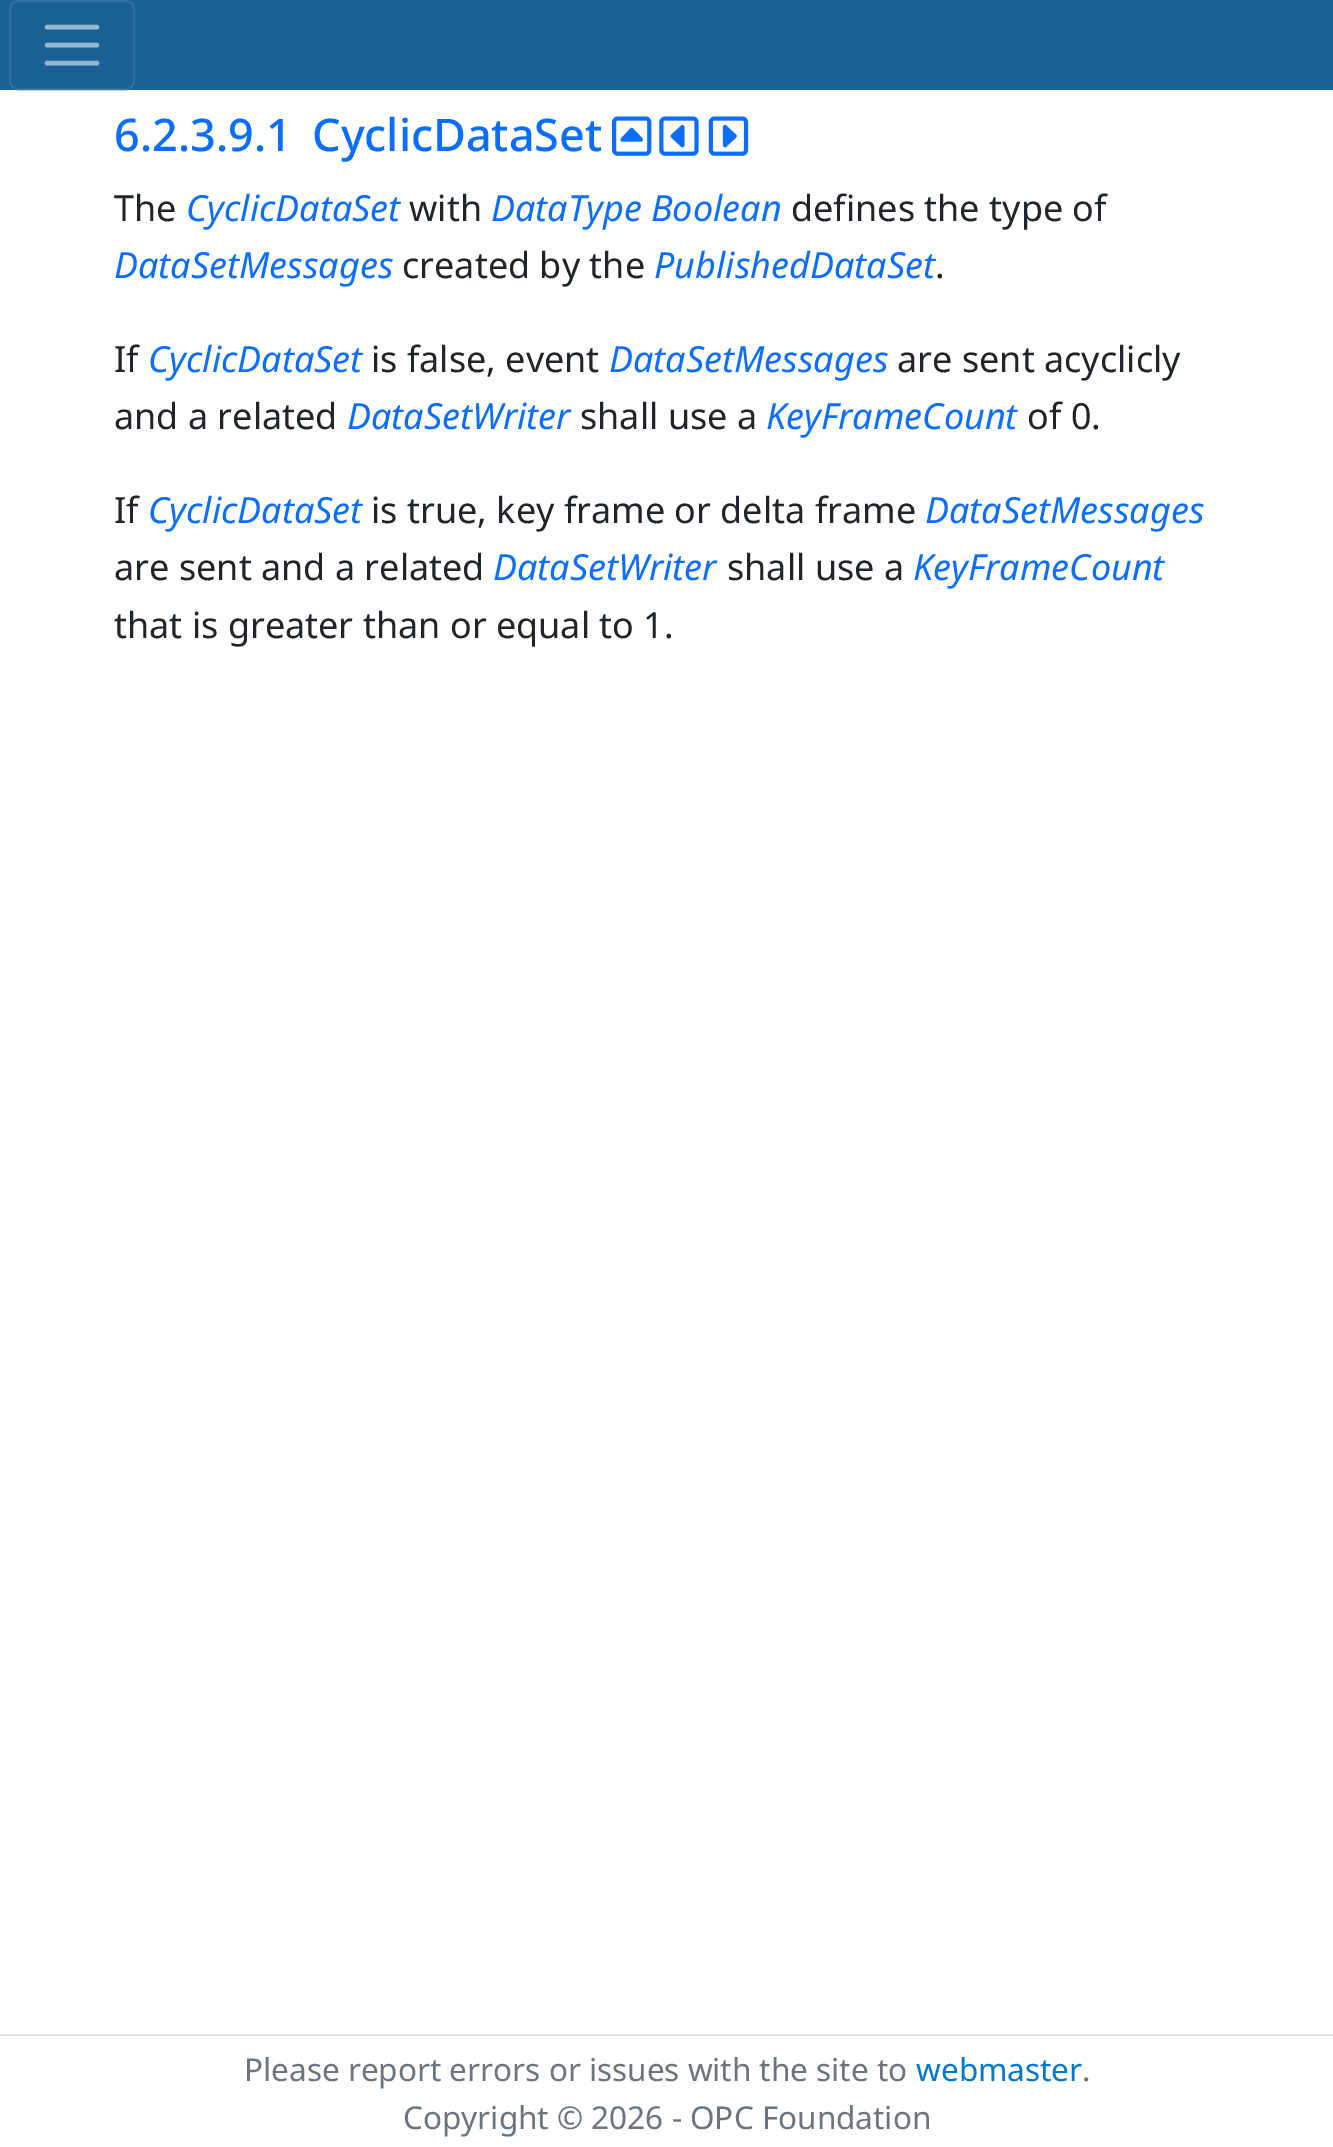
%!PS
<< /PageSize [1333 2147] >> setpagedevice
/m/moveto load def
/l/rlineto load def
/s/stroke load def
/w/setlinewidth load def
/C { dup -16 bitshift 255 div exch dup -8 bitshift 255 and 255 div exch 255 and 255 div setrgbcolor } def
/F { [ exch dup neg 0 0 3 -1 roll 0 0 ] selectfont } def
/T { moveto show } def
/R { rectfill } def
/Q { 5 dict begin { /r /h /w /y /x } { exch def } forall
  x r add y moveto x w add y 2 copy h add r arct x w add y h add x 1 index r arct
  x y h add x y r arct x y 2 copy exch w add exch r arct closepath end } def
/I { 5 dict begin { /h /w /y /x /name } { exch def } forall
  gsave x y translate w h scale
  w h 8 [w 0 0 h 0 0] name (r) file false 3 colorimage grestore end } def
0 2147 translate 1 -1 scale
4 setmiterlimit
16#FFFFFF C
0 0 1333 2147 R
16#196096 C
0 0 1333 90 R
16#3070A1 C
2 w
10 1 124 88 8 Q s
16#98B7D0 C
4.5 w
1 setlinecap
47 27 m 50 0 l 47 45 m 50 0 l 47 63 m 50 0 l s
/NotoSans-Medium 45 F
16#0D6EFD C
(6.2.3.9.1) 114 151 T
(CyclicDataSet) 312 151 T
(1.rgb) 612 116 40 40 I
(2.rgb) 659 116 40 40 I
(3.rgb) 708 116 41 40 I
/NotoSans-Regular 36 F
16#212529 C
(The) 114 221 T
/NotoSans-Italic 36 F
16#0D6EFD C
(CyclicDataSet) 186 221 T
/NotoSans-Regular 36 F
16#212529 C
(with) 409 221 T
/NotoSans-Italic 36 F
16#0D6EFD C
(DataType Boolean) 491 221 T
/NotoSans-Regular 36 F
16#212529 C
(defines the type of) 791 221 T
/NotoSans-Italic 36 F
16#0D6EFD C
(DataSetMessages) 114 278 T
/NotoSans-Regular 36 F
16#212529 C
(created by the) 402 278 T
/NotoSans-Italic 36 F
16#0D6EFD C
(PublishedDataSet) 654 278 T
/NotoSans-Regular 36 F
16#212529 C
(.) 935 278 T
(If) 114 372 T
/NotoSans-Italic 36 F
16#0D6EFD C
(CyclicDataSet) 148 372 T
/NotoSans-Regular 36 F
16#212529 C
(is false, event) 371 372 T
/NotoSans-Italic 36 F
16#0D6EFD C
(DataSetMessages) 609 372 T
/NotoSans-Regular 36 F
16#212529 C
(are sent acyclicly) 897 372 T
(and a related) 114 429 T
/NotoSans-Italic 36 F
16#0D6EFD C
(DataSetWriter) 347 429 T
/NotoSans-Regular 36 F
16#212529 C
(shall use a) 580 429 T
/NotoSans-Italic 36 F
16#0D6EFD C
(KeyFrameCount) 766 429 T
/NotoSans-Regular 36 F
16#212529 C
(of 0.) 1027 429 T
(If) 114 523 T
/NotoSans-Italic 36 F
16#0D6EFD C
(CyclicDataSet) 148 523 T
/NotoSans-Regular 36 F
16#212529 C
(is true, key frame or delta frame) 371 523 T
/NotoSans-Italic 36 F
16#0D6EFD C
(DataSetMessages) 925 523 T
/NotoSans-Regular 36 F
16#212529 C
(are sent and a related) 114 580 T
/NotoSans-Italic 36 F
16#0D6EFD C
(DataSetWriter) 493 580 T
/NotoSans-Regular 36 F
16#212529 C
(shall use a) 727 580 T
/NotoSans-Italic 36 F
16#0D6EFD C
(KeyFrameCount) 913 580 T
/NotoSans-Regular 36 F
16#212529 C
(that is greater than or equal to 1.) 114 638 T
16#DEE2E6 C
0 2034 1333 2 R
/NotoSans-Regular 31.5 F
16#6C757D C
(Please report errors or issues with the site to) 244 2081 T
16#0077CC C
(webmaster) 916 2081 T
16#6C757D C
(.) 1082 2081 T
(Copyright © 2026 - OPC Foundation) 403 2129 T
showpage
